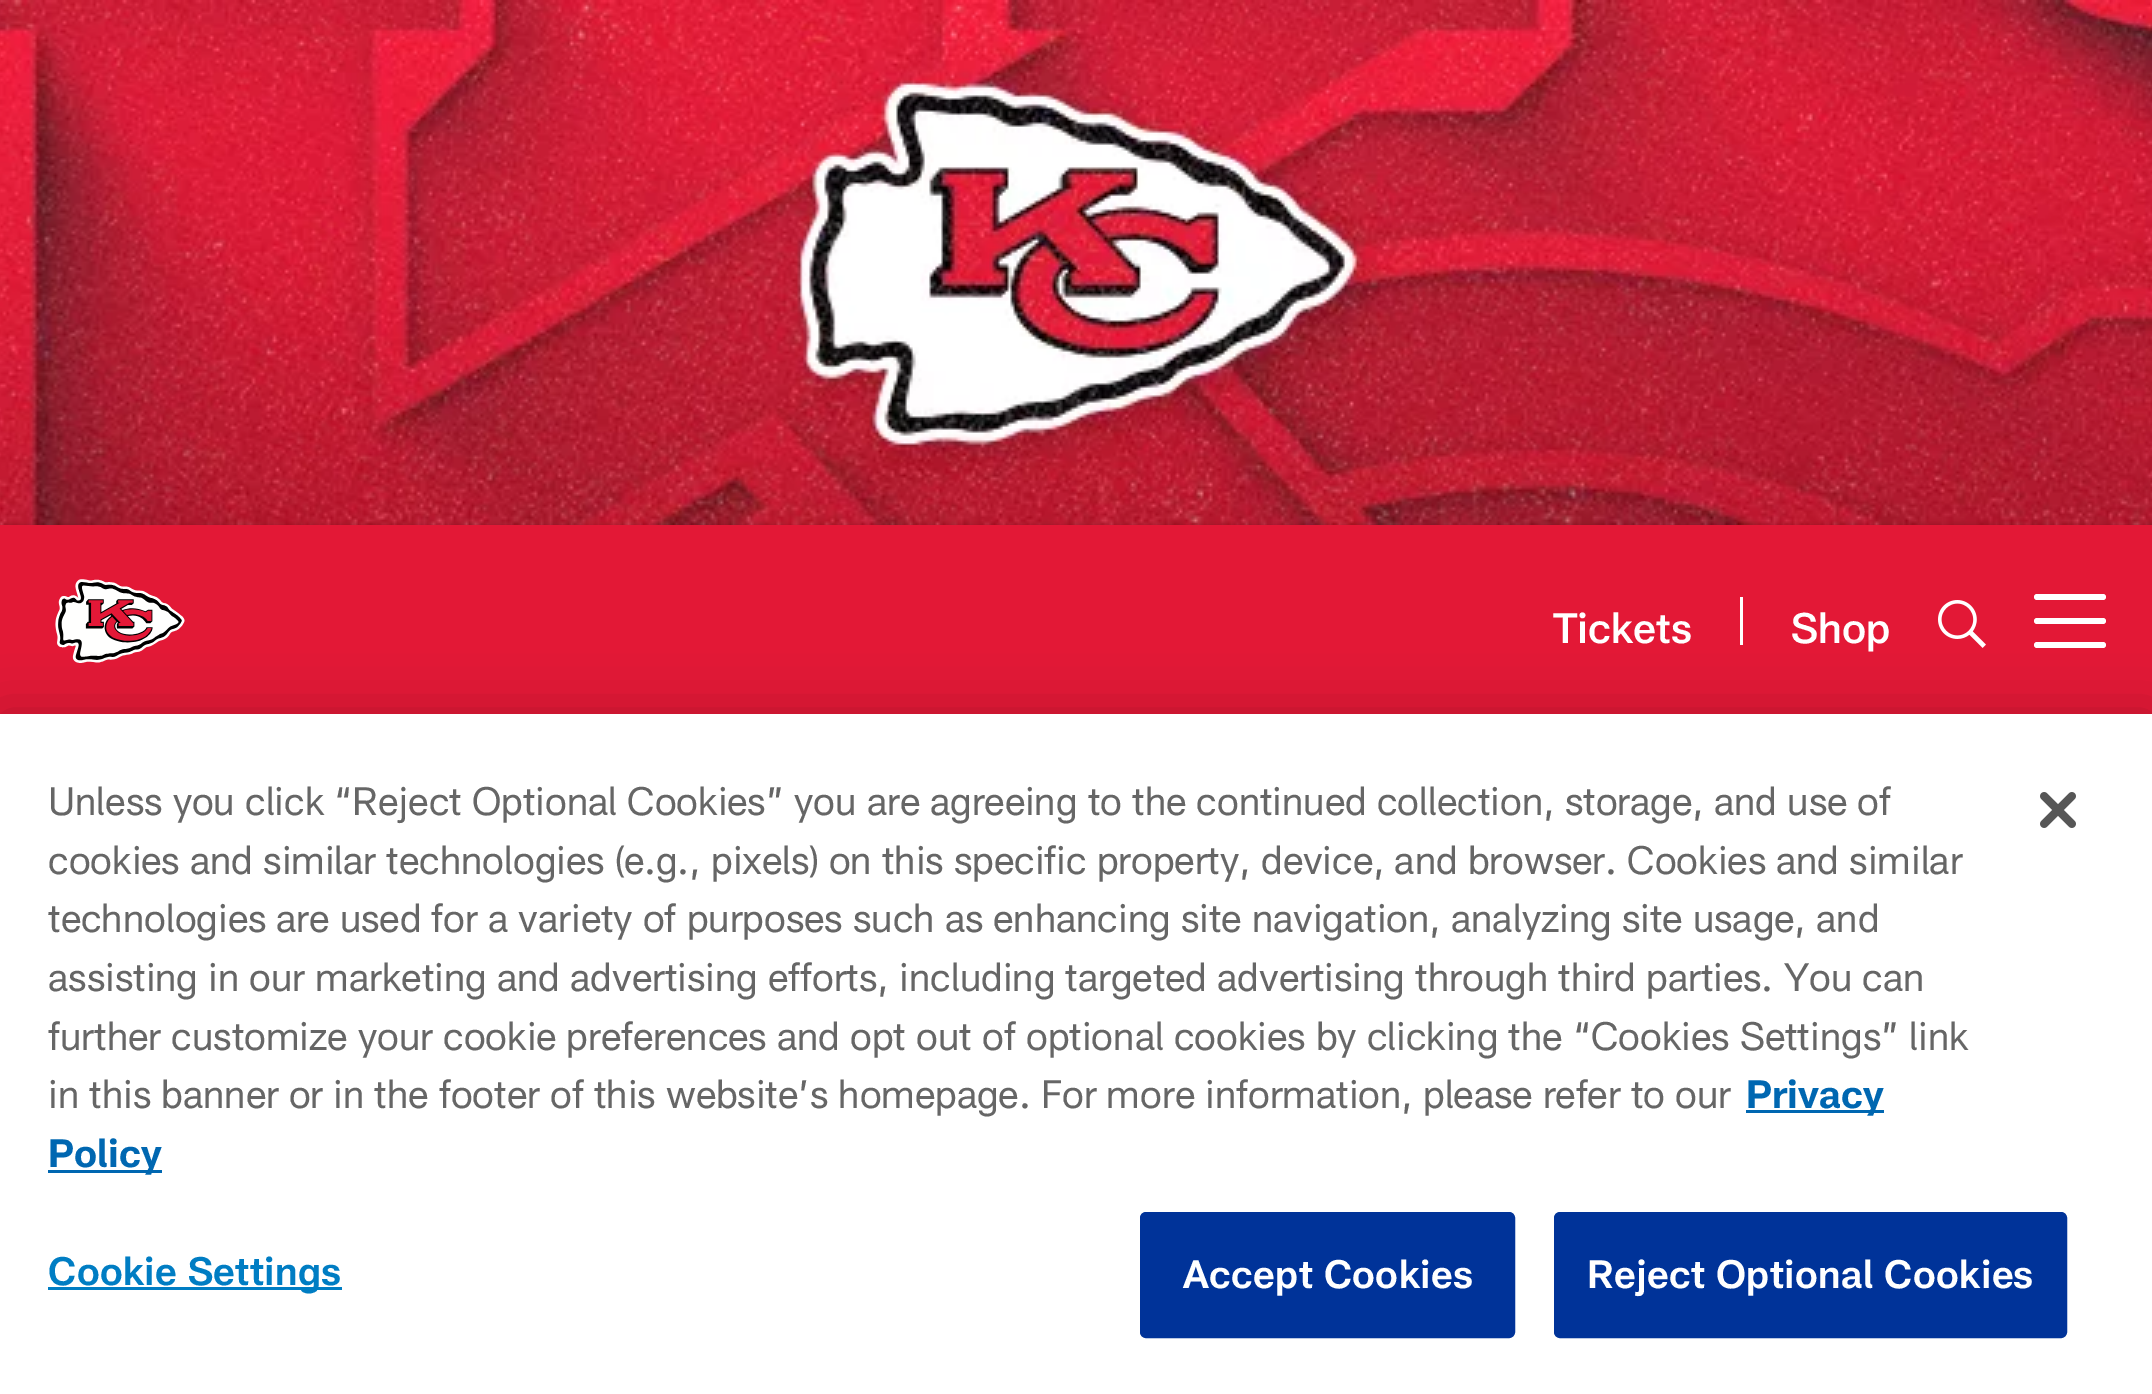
%!PS
<< /PageSize [2152 1394] /PageUsesTransparency true >> setpagedevice
/m/moveto load def
/f/fill load def
/s/stroke load def
/q/gsave load def
/Q_/grestore load def
/w/setlinewidth load def
/C { dup -16 bitshift 255 div exch dup -8 bitshift 255 and 255 div exch 255 and 255 div setrgbcolor } def
/F { [ exch dup neg 0 0 3 -1 roll 0 0 ] selectfont } def
/T { moveto show } def
/R { rectfill } def
/A { dup .setfillconstantalpha .setstrokeconstantalpha } def
/Q { 5 dict begin { /r /h /w /y /x } { exch def } forall
  x r add y moveto x w add y 2 copy h add r arct x w add y h add x 1 index r arct
  x y h add x y r arct x y 2 copy exch w add exch r arct closepath end } def
/S { 12 dict begin { /a /b /q /h /w /y /x } { exch def } forall gsave /was 0 def
  9 -2 -9 { dup b mul 4 div /e exch def 1 sub .425 mul 2.718 exch exp 1 add a .99 .min exch div /now exch def
    1 1 now sub 1 was sub div sub A /was now def
    w h .min e 2 mul add 0 gt { x e sub y e sub w e 2 mul add h e 2 mul add
      q e add b .6 mul add w h .min 2 div e add .min 0 .max Q fill } if } for grestore end } def
/I { 5 dict begin { /h /w /y /x /name } { exch def } forall
  gsave x y translate w h scale
  w h 8 [w 0 0 h 0 0] name (r) file false 3 colorimage grestore end } def
0 .pushpdf14devicefilter
0 1394 translate 1 -1 scale
4 setmiterlimit
16#FFFFFF C
0 0 2152 1394 R
(1.rgb) 0 0 2152 525 I
16#000000 C
0 528 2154 192 0 3 .47 S
16#E31836 C
0 525 2152 189 R
(2.rgb) 55 579 130 84 I
/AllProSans-Medium 42 F
16#FFFFFF C
(Tickets) 1553 643 T
1740 597 3 48 R
(Shop) 1791 643 T
(3.rgb) 1938 600 48 48 I
2034 618 72 6 3 Q f
2034 594 72 6 3 Q f
2034 642 72 6 3 Q f
16#000000 C
0 714 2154 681 0 27 .2 S
16#FFFFFF C
0 714 2152 680 R
/AllProSans-Regular 39 F
16#666666 C
(Unless you click “Reject Optional Cookies” you are agreeing to the continued collection, storage, and use of) 48 815 T
(cookies and similar technologies \(e.g., pixels\) on this specific property, device, and browser. Cookies and similar) 48 874 T
(technologies are used for a variety of purposes such as enhancing site navigation, analyzing site usage, and) 48 932 T
(assisting in our marketing and advertising efforts, including targeted advertising through third parties. You can) 48 991 T
(further customize your cookie preferences and opt out of optional cookies by clicking the “Cookies Settings” link) 48 1050 T
(in this banner or in the footer of this website’s homepage. For more information, please refer to our) 48 1108 T
16#0067B1 C
1746 1110 138 3 R
/AllProSans-Bold 39 F
(Privacy) 1746 1108 T
48 1170 114 3 R
(Policy) 48 1167 T
16#007DC3 C
48 1287 294 3 R
/AllProSans-SemiBold 39 F
48 1285 m .4 0 (Cookie Settings) ashow
16#003399 C
1141.5 1213.5 372 123 4.5 Q q f Q_
3 w
s
16#FFFFFF C
1183 1288 m .4 0 (Accept Cookies) ashow
16#003399 C
1555.5 1213.5 510 123 4.5 Q q f Q_
s
16#FFFFFF C
1587 1288 m .4 0 (Reject Optional Cookies) ashow
(4.rgb) 2040 792 36 36 I
.poppdf14devicefilter showpage
